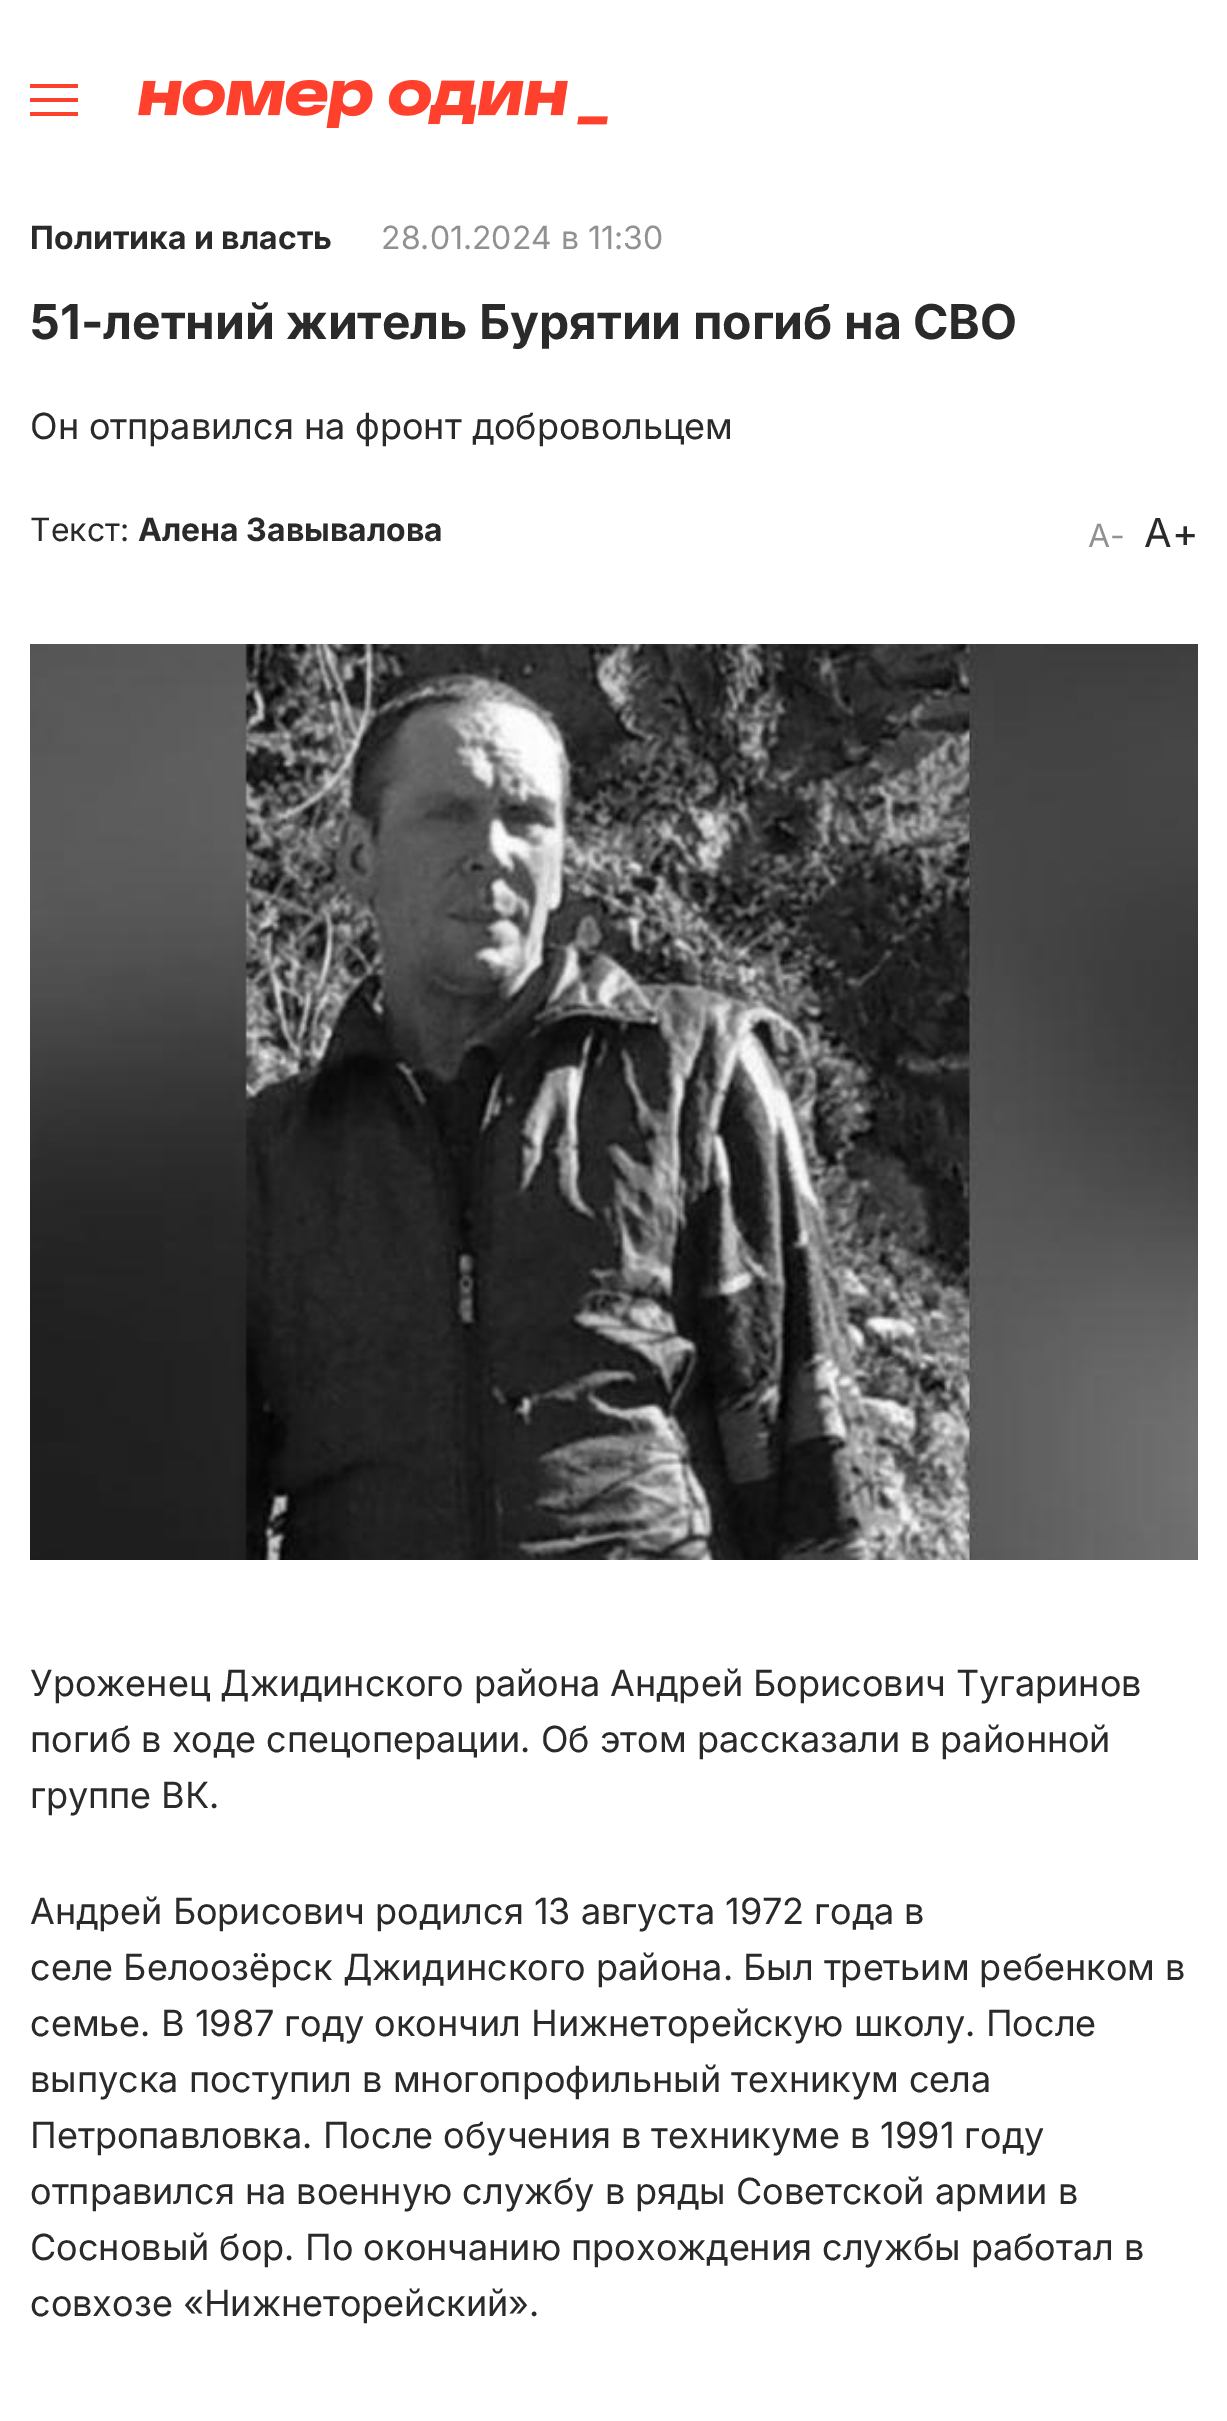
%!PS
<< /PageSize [1227 2421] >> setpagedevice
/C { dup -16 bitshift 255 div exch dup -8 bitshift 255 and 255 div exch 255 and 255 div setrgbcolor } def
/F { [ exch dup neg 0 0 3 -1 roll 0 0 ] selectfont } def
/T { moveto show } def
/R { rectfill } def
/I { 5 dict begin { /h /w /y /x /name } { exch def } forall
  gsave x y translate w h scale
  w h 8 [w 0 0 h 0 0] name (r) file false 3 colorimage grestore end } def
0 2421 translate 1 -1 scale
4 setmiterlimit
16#FFFFFF C
0 0 1227 2421 R
16#FF402C C
30 84 48 4 R
30 112 48 4 R
30 98 48 4 R
(1.rgb) 138 80 470 48 I
/Inter-Bold 32 F
16#2A2A2A C
(Политика и власть) 30 249 T
/Inter-Regular 32 F
16#919191 C
(28.01.2024 в 11:30) 381 249 T
/Inter-Bold 48 F
16#2A2A2A C
(51-летний житель Бурятии погиб на СВО) 30 339 T
/Inter-Regular 36 F
(Он отправился на фронт добровольцем) 30 439 T
/Inter-Regular 32 F
(Текст:) 30 541 T
/Inter-Bold 32 F
(Алена Завывалова) 138 541 T
/Inter-Regular 32 F
16#919191 C
(A-) 1088 547 T
/Inter-Regular 40 F
16#2A2A2A C
(A+) 1144 547 T
(2.rgb) 30 644 1168 916 I
/Inter-Regular 36 F
(Уроженец Джидинского района Андрей Борисович Тугаринов) 30 1696 T
(погиб в ходе спецоперации. Об этом рассказали в районной) 30 1752 T
(группе ВК.) 30 1808 T
(Андрей Борисович родился 13 августа 1972 года в) 30 1924 T
(селе Белоозёрск Джидинского района. Был третьим ребенком в) 30 1980 T
(семье. В 1987 году окончил Нижнеторейскую школу. После) 30 2036 T
(выпуска поступил в многопрофильный техникум села) 30 2092 T
(Петропавловка. После обучения в техникуме в 1991 году) 30 2148 T
(отправился на военную службу в ряды Советской армии в) 30 2204 T
(Сосновый бор. По окончанию прохождения службы работал в) 30 2260 T
(совхозе «Нижнеторейский».) 30 2316 T
showpage
